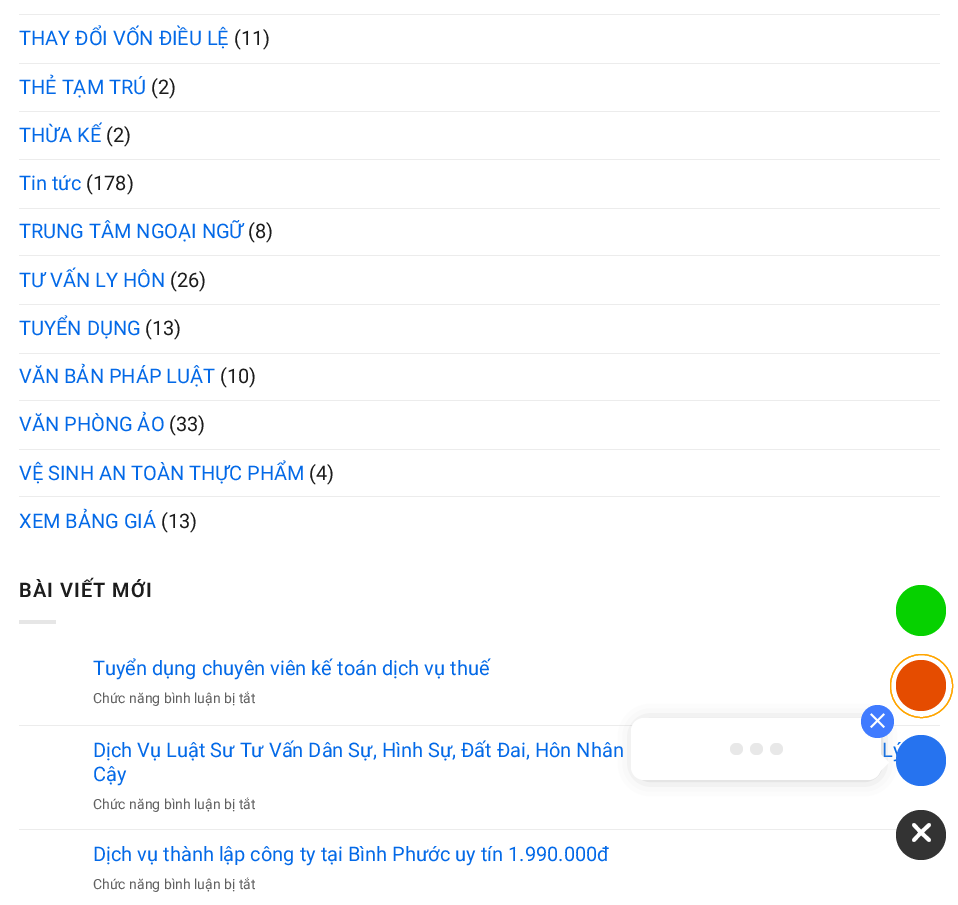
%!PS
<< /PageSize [958 905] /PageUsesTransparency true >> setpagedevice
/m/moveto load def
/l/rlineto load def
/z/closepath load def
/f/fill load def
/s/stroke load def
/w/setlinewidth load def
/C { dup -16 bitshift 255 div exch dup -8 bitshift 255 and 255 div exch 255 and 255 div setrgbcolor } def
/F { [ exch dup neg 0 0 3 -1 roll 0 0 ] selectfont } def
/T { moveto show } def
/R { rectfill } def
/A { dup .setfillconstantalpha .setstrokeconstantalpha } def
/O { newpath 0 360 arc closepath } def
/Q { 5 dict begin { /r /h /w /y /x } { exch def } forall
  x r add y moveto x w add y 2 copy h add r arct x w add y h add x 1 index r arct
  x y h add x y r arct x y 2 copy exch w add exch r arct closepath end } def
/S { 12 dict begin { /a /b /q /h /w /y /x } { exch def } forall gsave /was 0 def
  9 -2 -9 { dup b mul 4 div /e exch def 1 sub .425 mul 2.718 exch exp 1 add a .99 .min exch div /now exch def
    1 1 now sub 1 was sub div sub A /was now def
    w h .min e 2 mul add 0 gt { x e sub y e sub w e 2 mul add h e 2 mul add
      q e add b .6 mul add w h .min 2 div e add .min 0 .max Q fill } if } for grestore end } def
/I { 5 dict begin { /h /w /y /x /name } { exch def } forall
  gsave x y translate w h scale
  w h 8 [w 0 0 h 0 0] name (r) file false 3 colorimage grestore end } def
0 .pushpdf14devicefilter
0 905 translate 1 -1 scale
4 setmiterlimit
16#FFFFFF C
0 0 958 905 R
16#ECECEC C
19 14 921 1 R
/Roboto-Regular 20 F
16#0369E7 C
(THAY ĐỔI VỐN ĐIỀU LỆ) 19 45 T
16#1C1C1C C
(\(11\)) 234 45 T
16#ECECEC C
19 63 921 1 R
16#0369E7 C
(THẺ TẠM TRÚ) 19 94 T
16#1C1C1C C
(\(2\)) 151 94 T
16#ECECEC C
19 111 921 1 R
16#0369E7 C
(THỪA KẾ) 19 142 T
16#1C1C1C C
(\(2\)) 106 142 T
16#ECECEC C
19 159 921 1 R
16#0369E7 C
(Tin tức) 19 190 T
16#1C1C1C C
(\(178\)) 86 190 T
16#ECECEC C
19 208 921 1 R
16#0369E7 C
(TRUNG TÂM NGOẠI NGỮ) 19 238 T
16#1C1C1C C
(\(8\)) 248 238 T
16#ECECEC C
19 255 921 1 R
16#0369E7 C
(TƯ VẤN LY HÔN) 19 287 T
16#1C1C1C C
(\(26\)) 170 287 T
16#ECECEC C
19 304 921 1 R
16#0369E7 C
(TUYỂN DỤNG) 19 335 T
16#1C1C1C C
(\(13\)) 145 335 T
16#ECECEC C
19 353 921 1 R
16#0369E7 C
(VĂN BẢN PHÁP LUẬT) 19 383 T
16#1C1C1C C
(\(10\)) 220 383 T
16#ECECEC C
19 400 921 1 R
16#0369E7 C
(VĂN PHÒNG ẢO) 19 431 T
16#1C1C1C C
(\(33\)) 169 431 T
16#ECECEC C
19 449 921 1 R
16#0369E7 C
(VỆ SINH AN TOÀN THỰC PHẨM) 19 480 T
16#1C1C1C C
(\(4\)) 309 480 T
16#ECECEC C
19 496 921 1 R
16#0369E7 C
(XEM BẢNG GIÁ) 19 528 T
16#1C1C1C C
(\(13\)) 161 528 T
/Roboto-SemiBold 20 F
19 597 m 1 0 (BÀI VIẾT MỚI) ashow
16#E6E6E6 C
19 620 37 4 R
/Roboto-Regular 20 F
16#0369E7 C
(Tuyển dụng chuyên viên kế toán dịch vụ thuế) 93 675 T
/Roboto-Regular 14 F
16#606060 C
(Chức năng bình luận bị tắt) 93 703 T
16#ECECEC C
19 725 921 1 R
/Roboto-Regular 20 F
16#0369E7 C
(Dịch Vụ Luật Sư Tư Vấn Dân Sự, Hình Sự, Đất Đai, Hôn Nhân) 93 757 T
(Lý) 882 757 T
(Cậy) 93 781 T
/Roboto-Regular 14 F
16#606060 C
(Chức năng bình luận bị tắt) 93 809 T
16#ECECEC C
19 829 878 1 R
/Roboto-Regular 20 F
16#0369E7 C
(Dịch vụ thành lập công ty tại Bình Phước uy tín 1.990.000đ) 93 861 T
/Roboto-Regular 14 F
16#606060 C
(Chức năng bình luận bị tắt) 93 889 T
16#06D100 C
896 585 50 51 25 Q f
16#E54C00 C
896 660 50 51 25 Q f
16#FFA500 C
890.5 654.5 62 63 31 Q s
890.5 654.5 62 63 31 Q s
16#2673EF C
896 735 50 51 25 Q f
16#A7A7A7 C
639 725 237 50 6 9.5 1 S
16#FFFFFF C
631 718 250 62 13 Q f
16#407BFF C
877.5 721.5 16.5 O f
(1.rgb) 870 713 15 15 I
16#E8E8E8 C
730 743 13 12 6 Q f
750 743 13 12 6 Q f
770 743 13 12 6 Q f
16#FFFFFF C
879 772.5 m 0 -20 l 10 10 l z f
16#333333 C
921 835 25 O f
16#FFFFFF C
3.8 w
1 setlinecap
1 setlinejoin
929 840 m -8 -7.5 l 921 832.5 m -7 -7.5 l 921 832.5 m 8 -7.5 l 921 832.5 m -7 7.5 l s
.poppdf14devicefilter showpage
